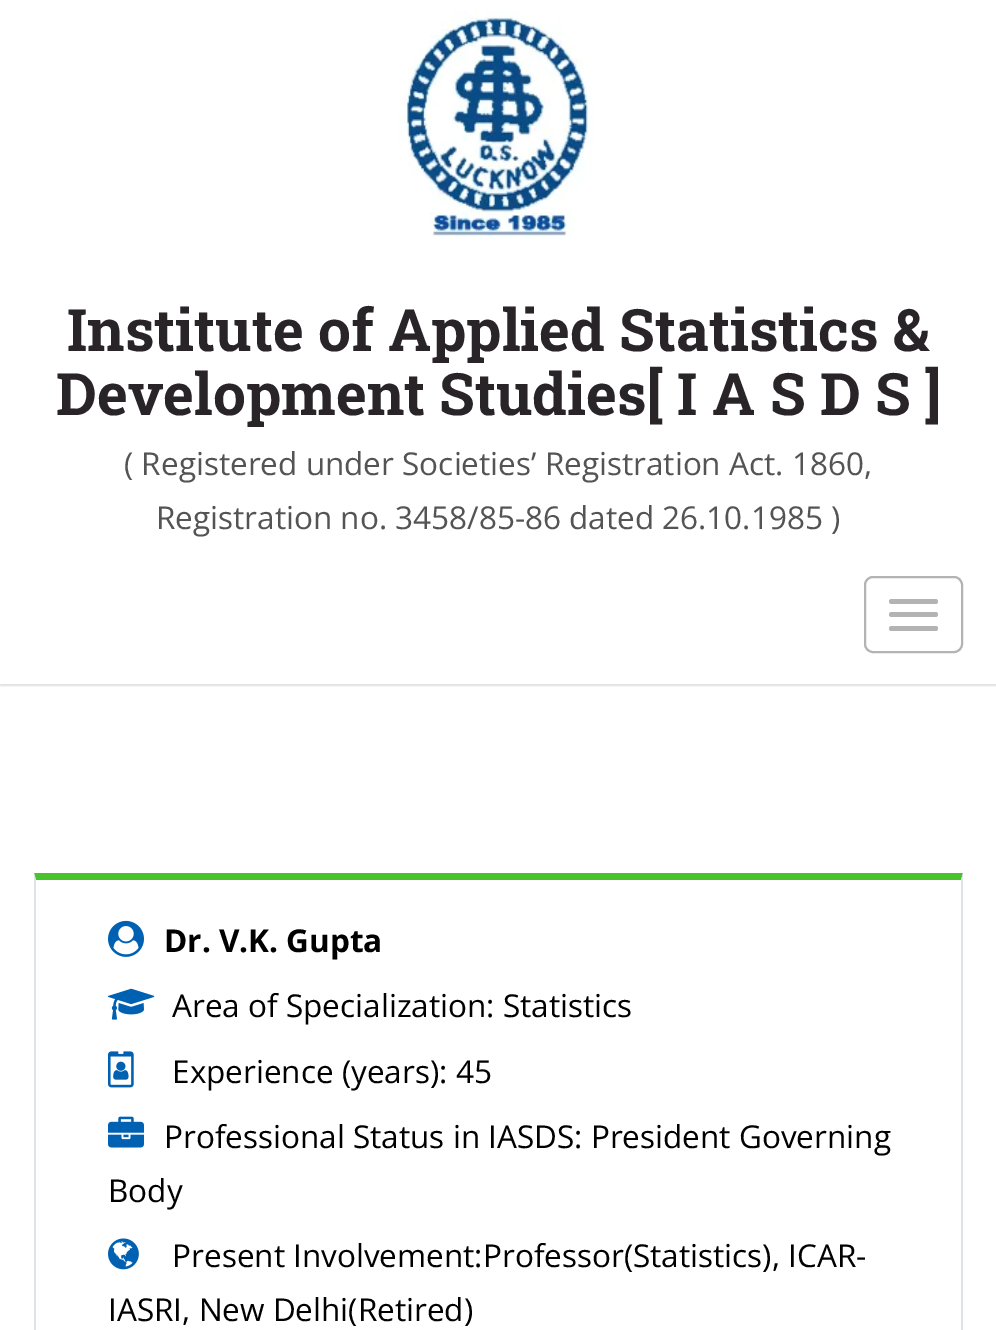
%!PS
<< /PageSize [996 1330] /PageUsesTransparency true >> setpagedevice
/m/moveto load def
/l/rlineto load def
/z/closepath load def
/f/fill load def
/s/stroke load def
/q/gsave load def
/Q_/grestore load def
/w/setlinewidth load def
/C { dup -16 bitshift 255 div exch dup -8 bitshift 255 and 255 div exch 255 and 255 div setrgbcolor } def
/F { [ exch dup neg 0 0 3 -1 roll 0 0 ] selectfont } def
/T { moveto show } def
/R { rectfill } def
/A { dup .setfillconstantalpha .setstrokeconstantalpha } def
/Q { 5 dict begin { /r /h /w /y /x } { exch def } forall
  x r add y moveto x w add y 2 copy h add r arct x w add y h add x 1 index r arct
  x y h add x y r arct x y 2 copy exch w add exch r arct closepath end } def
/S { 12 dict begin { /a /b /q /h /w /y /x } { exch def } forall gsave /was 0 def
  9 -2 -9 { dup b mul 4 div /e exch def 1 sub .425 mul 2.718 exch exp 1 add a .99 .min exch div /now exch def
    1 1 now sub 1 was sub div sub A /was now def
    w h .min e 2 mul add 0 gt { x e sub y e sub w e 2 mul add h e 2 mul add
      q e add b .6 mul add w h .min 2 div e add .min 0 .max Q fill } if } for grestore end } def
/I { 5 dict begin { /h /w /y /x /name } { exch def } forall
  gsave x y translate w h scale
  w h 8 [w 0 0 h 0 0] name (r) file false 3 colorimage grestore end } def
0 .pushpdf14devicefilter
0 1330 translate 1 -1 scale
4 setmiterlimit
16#FFFFFF C
0 0 996 1330 R
q
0 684 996 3 rectclip
16#000000 C
0 2 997 684 0 1 .12 S
Q_
(1.rgb) 398 11 196 226 I
/RobotoSlab-Bold 58.5 F
16#282428 C
(Institute of Applied Statistics &) 67 351 T
(Development Studies[ I A S D S ]) 56 415 T
/OpenSans-Regular 31.5 F
16#545454 C
(\( Registered under Societies’ Registration Act. 1860,) 124 475 T
(Registration no. 3458/85-86 dated 26.10.1985 \)) 156 529 T
16#B3B3B3 C
2 w
865 577 97 75 8 Q s
889 599 49 5 2.5 Q f
889 612 49 5 2.5 Q f
889 626 49 5 2.5 Q f
16#49C32C C
34 873 m 929 0 l -2 7 l -925 0 l z f
16#DCE4EA C
963 873 m 0 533 l -2 -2 l 0 -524 l z f
34 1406 m 0 -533 l 2 7 l 0 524 l z f
(2.rgb) 108 920 36 37 I
/OpenSans-Bold 31.5 F
16#000000 C
(Dr. V.K. Gupta) 164 952 T
(3.rgb) 108 988 47 32 I
/OpenSans-Regular 31.5 F
(Area of Specialization: Statistics) 172 1017 T
(4.rgb) 108 1051 26 37 I
(Experience \(years\): 45) 172 1083 T
(5.rgb) 108 1116 36 32 I
(Professional Status in IASDS: President Governing) 164 1148 T
(Body) 108 1202 T
(6.rgb) 108 1238 31 32 I
(Present Involvement:Professor\(Statistics\), ICAR-) 172 1267 T
(IASRI, New Delhi\(Retired\)) 108 1321 T
.poppdf14devicefilter showpage
